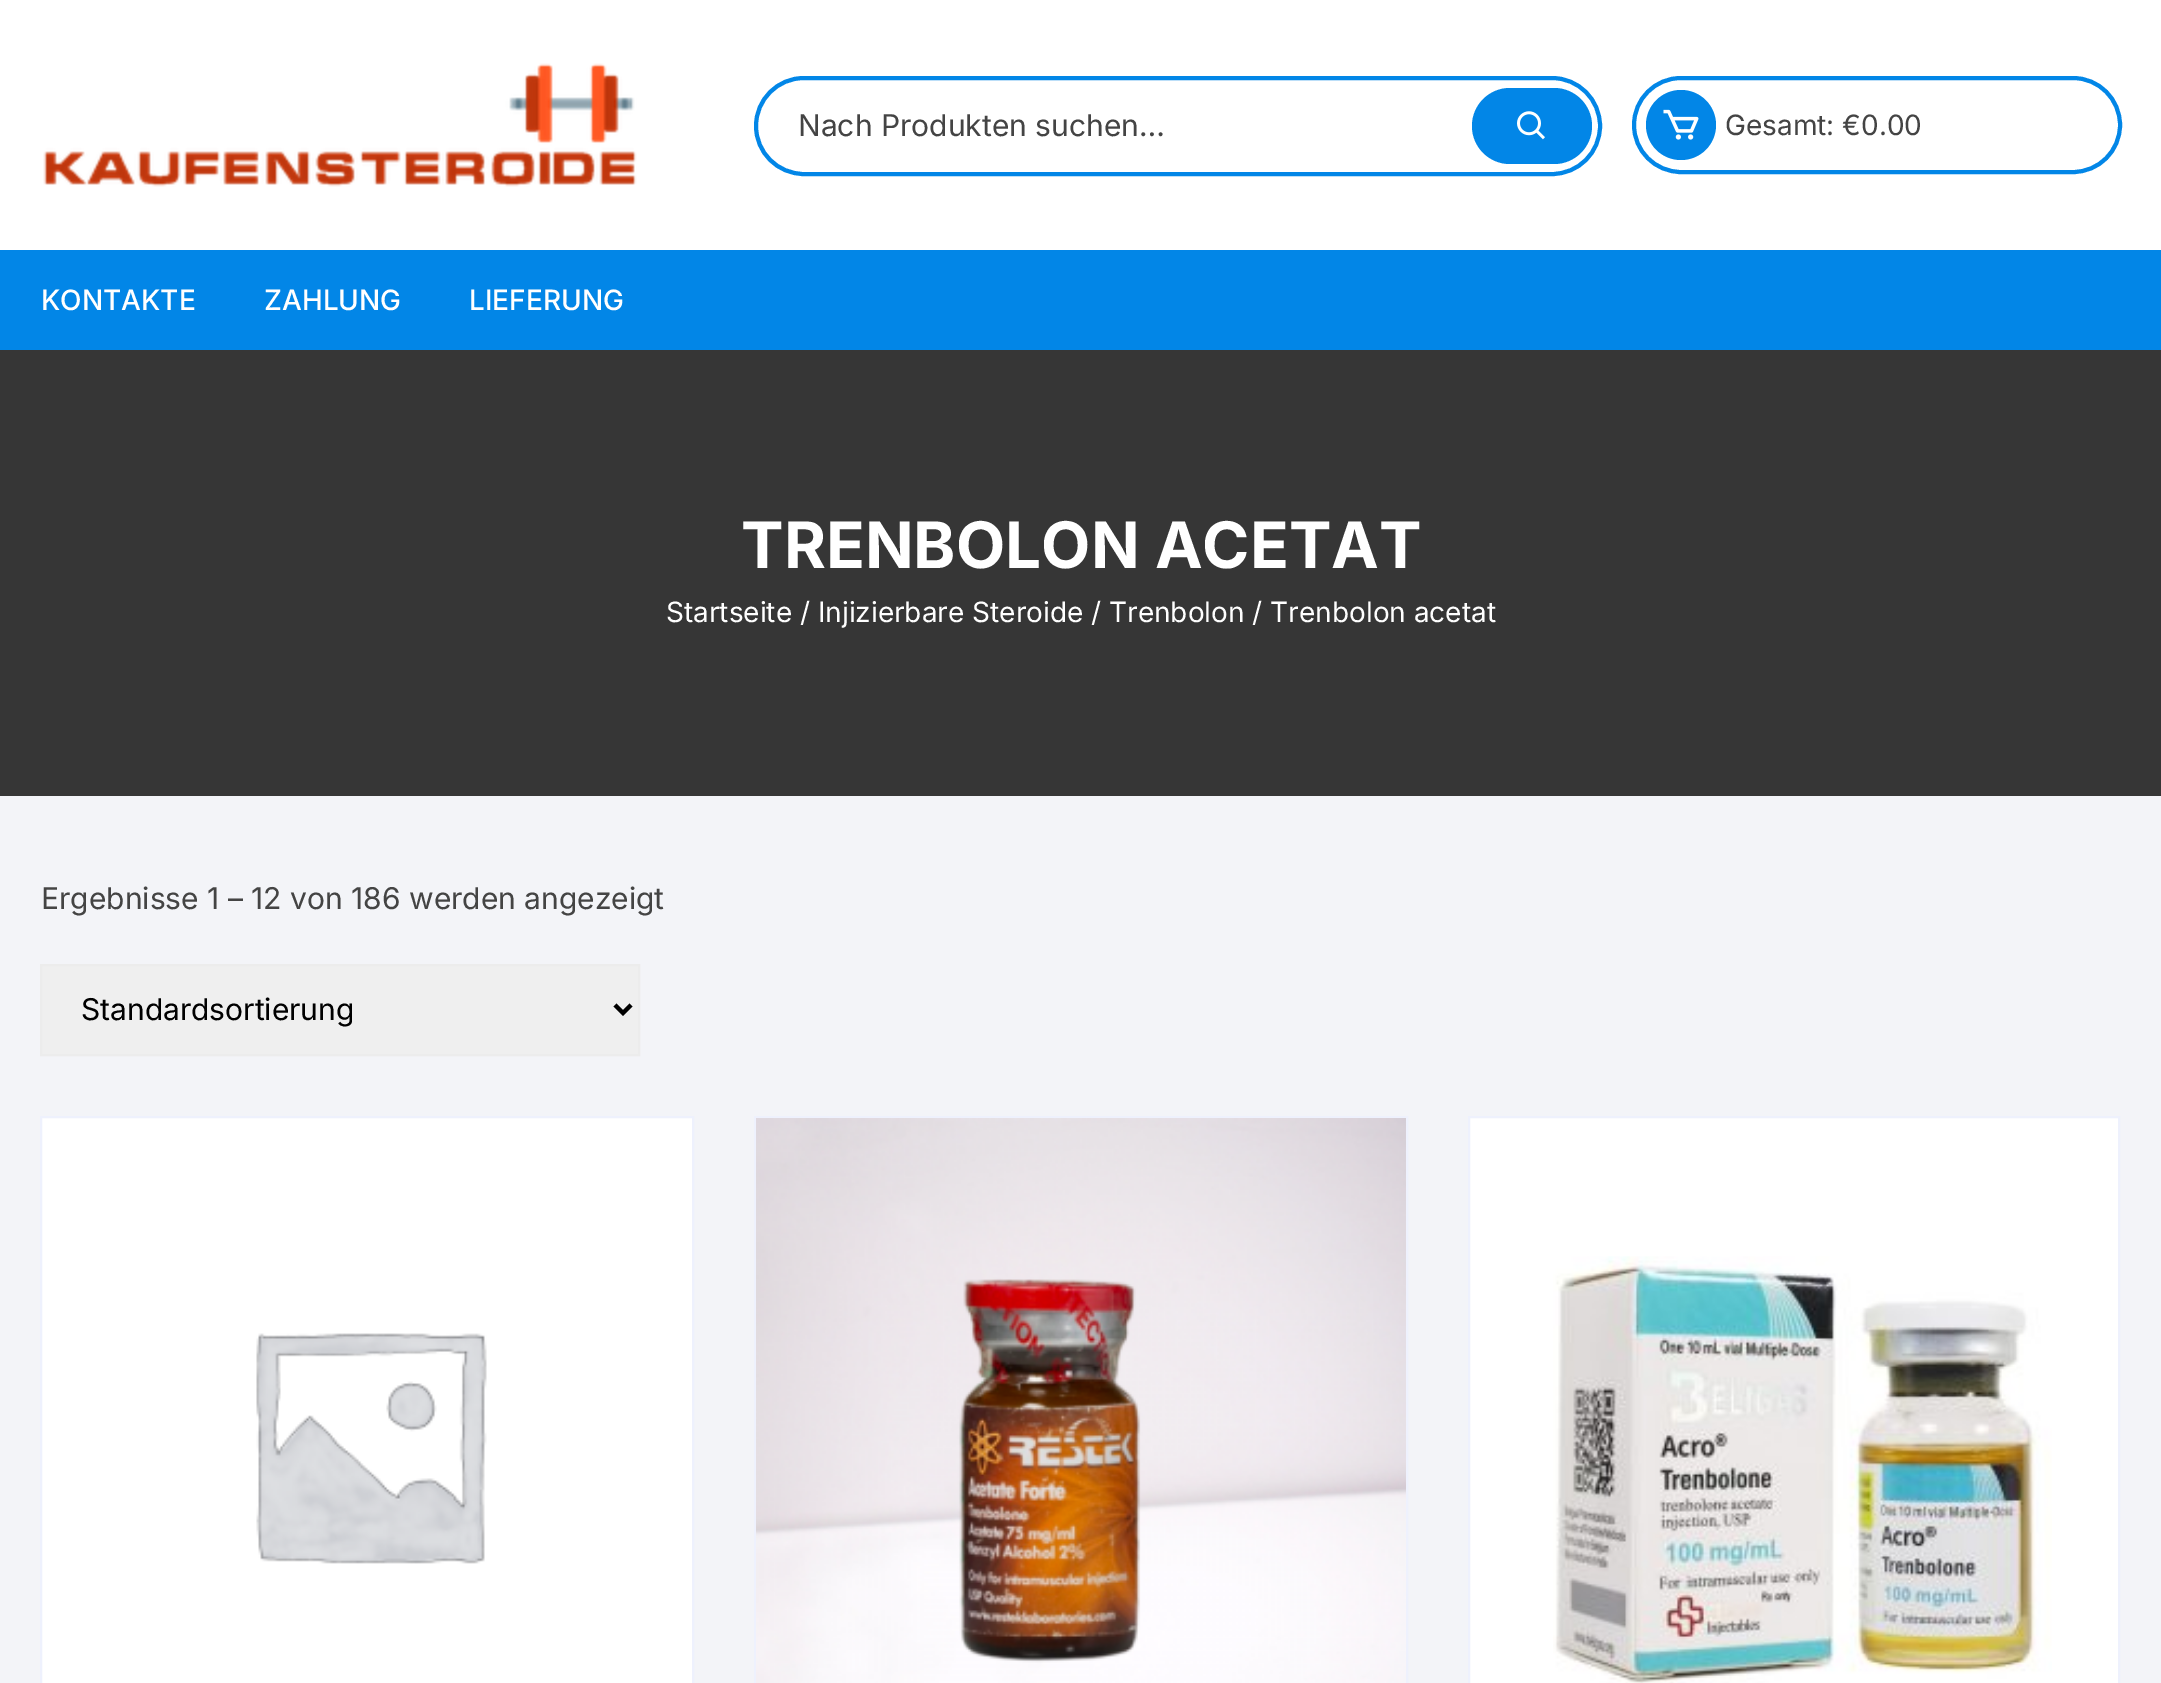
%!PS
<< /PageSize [2161 1683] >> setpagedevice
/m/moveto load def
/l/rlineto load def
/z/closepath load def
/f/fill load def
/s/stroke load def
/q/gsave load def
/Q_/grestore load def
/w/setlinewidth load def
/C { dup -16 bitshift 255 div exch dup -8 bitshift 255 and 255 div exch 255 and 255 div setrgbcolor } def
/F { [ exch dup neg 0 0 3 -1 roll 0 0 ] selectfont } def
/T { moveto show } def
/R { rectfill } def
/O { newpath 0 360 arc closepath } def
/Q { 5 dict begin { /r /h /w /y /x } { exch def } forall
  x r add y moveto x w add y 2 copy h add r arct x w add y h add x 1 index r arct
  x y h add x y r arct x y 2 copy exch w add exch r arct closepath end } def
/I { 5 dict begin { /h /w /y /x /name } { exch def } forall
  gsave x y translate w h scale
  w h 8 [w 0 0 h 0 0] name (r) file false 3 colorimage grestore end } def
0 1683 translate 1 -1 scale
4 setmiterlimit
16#F3F4F8 C
0 0 2161 1683 R
16#FFFFFF C
0 0 2161 250 R
(1.rgb) 43 63 594 124 I
16#0286E7 C
4 w
756 78 844 96 48 Q s
/Inter-Regular 30 F
16#444444 C
(Nach Produkten suchen…) 798 136 T
16#0286E7 C
1472 88 120 76 38 Q f
(2.rgb) 1517 111 28 29 I
1634 78 486 94 47 Q s
1681 125 35 O f
(3.rgb) 1663 109 36 31 I
/Inter-Regular 28 F
16#444444 C
(Gesamt: €0.00) 1725 135 T
16#0286E7 C
0 250 2161 100 R
/Inter-Medium 28 F
16#FFFFFF C
(KONTAKTE) 41 310 T
(ZAHLUNG) 264 310 T
(LIEFERUNG) 469 310 T
16#363636 C
0 350 2161 446 R
/Inter-Bold 64 F
16#FFFFFF C
(TRENBOLON ACETAT) 741 568 T
/Inter-Regular 28 F
(Startseite / Injizierbare Steroide / Trenbolon / Trenbolon acetat) 666 622 T
/Inter-Regular 30 F
16#444444 C
(Ergebnisse 1 – 12 von 186 werden angezeigt) 41 909 T
16#EFEFEF C
41 965 m 598 0 l 0 90 l -598 0 l z q f Q_
16#ECECEC C
2 w
s
16#000000 C
4 w
615 1005 m 8 8 l 8 -8 l s
(Standardsortierung) 81 1020 T
16#FFFFFF C
41 1117 m 652 0 l 0 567 l -652 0 l z q f Q_
16#EEF1FD C
2 w
s
(4.rgb) 256 1333 231 231 I
755 1117 652 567 rectstroke
(5.rgb) 756 1118 650 565 I
16#FFFFFF C
1469 1117 m 650 0 l 0 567 l -650 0 l z q f Q_
16#EEF1FD C
s
(6.rgb) 1553 1256 499 427 I
showpage
